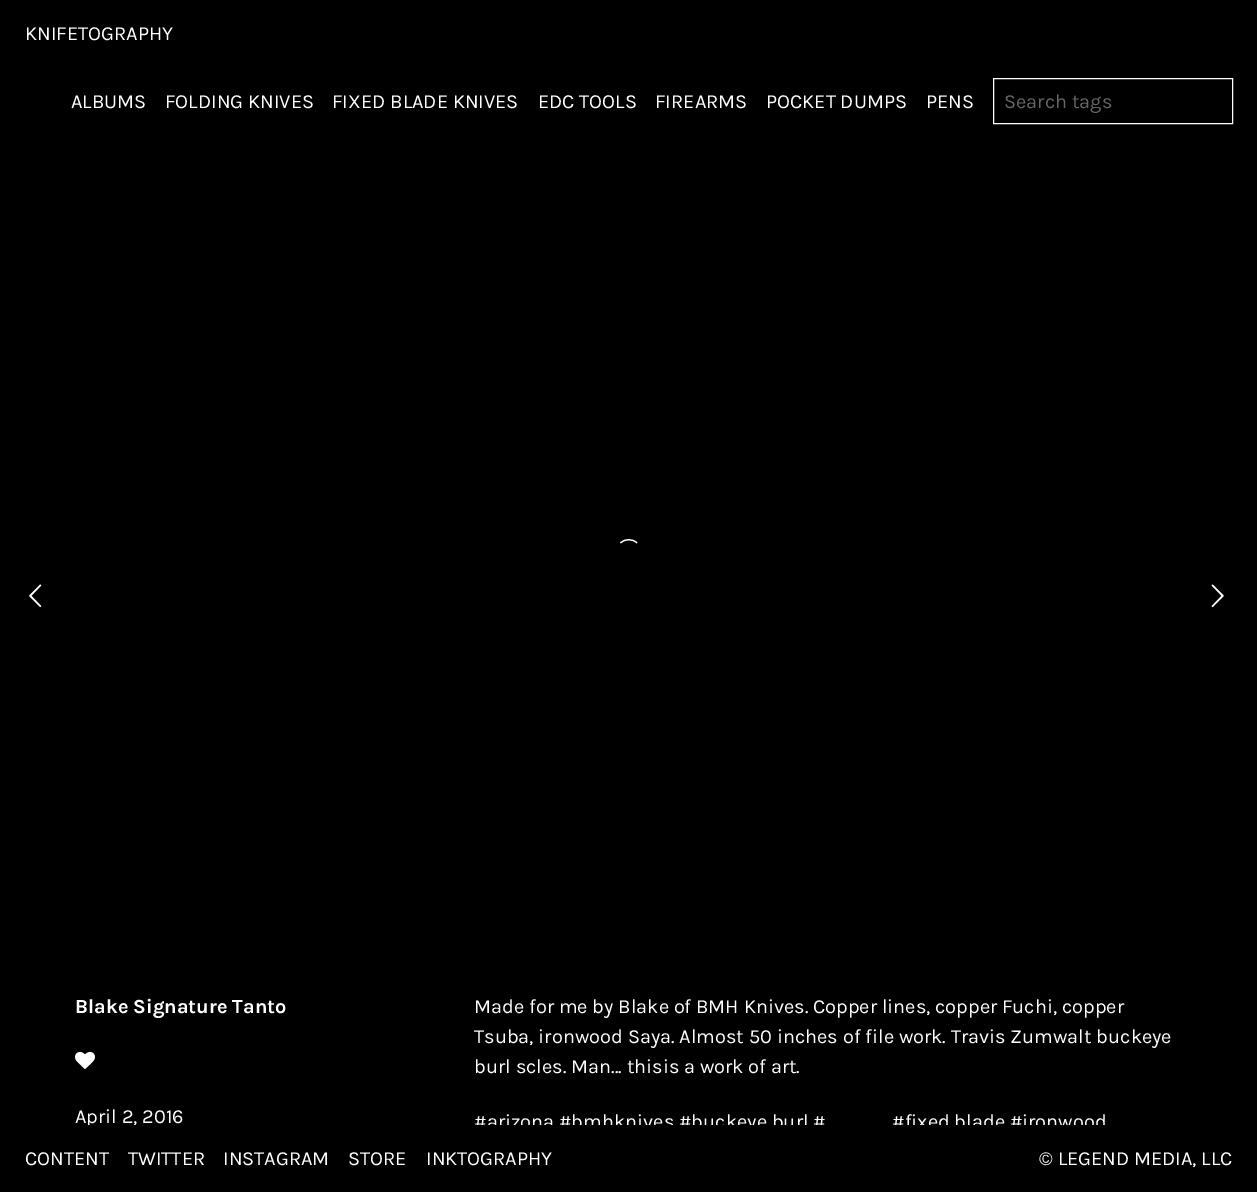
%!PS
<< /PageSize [1257 1192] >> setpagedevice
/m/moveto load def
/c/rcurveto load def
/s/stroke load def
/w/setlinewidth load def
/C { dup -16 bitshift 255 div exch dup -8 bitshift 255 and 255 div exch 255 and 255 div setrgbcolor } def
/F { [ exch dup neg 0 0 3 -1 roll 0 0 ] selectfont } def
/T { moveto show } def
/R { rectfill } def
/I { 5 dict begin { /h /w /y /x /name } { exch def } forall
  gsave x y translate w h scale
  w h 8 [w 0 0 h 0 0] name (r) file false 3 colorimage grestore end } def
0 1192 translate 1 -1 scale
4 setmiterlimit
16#000000 C
0 0 1257 1192 R
/Karla-Regular 20 F
16#FFFFFF C
(KNIFETOGRAPHY) 25 40 T
(ALBUMS) 71 108 T
(FOLDING KNIVES) 165 108 T
(FIXED BLADE KNIVES) 332 108 T
(EDC TOOLS) 538 108 T
(FIREARMS) 655 108 T
(POCKET DUMPS) 766 108 T
(PENS) 926 108 T
993.5 78.5 239 45 rectstroke
16#666666 C
(Search tags) 1004 108 T
(1.rgb) 29 584 13 24 I
(2.rgb) 1211 584 13 24 I
16#FFFFFF C
1.2 w
620.5 543 m 4.5 -4.5 12 -4.5 16.5 0 c s
/Karla-Bold 20 F
(Blake Signature Tanto) 75 1013 T
(3.rgb) 75 1051 20 18 I
/Karla-Regular 20 F
(April 2, 2016) 75 1123 T
(Made for me by Blake of BMH Knives. Copper lines, copper Fuchi, copper) 474 1013 T
(Tsuba, ironwood Saya. Almost 50 inches of file work. Travis Zumwalt buckeye) 474 1043 T
(burl scles. Man... thisis a work of art.) 474 1073 T
(#arizona #bmhknives #buckeye burl #) 474 1128 T
(#fixed blade #ironwood) 892 1128 T
16#000000 C
88 1125 1018 8 R
16#FFFFFF C
(CONTENT) 25 1165 T
(TWITTER) 128 1165 T
(INSTAGRAM) 223 1165 T
(STORE) 348 1165 T
(INKTOGRAPHY) 426 1165 T
(© LEGEND MEDIA, LLC) 1039 1165 T
showpage
